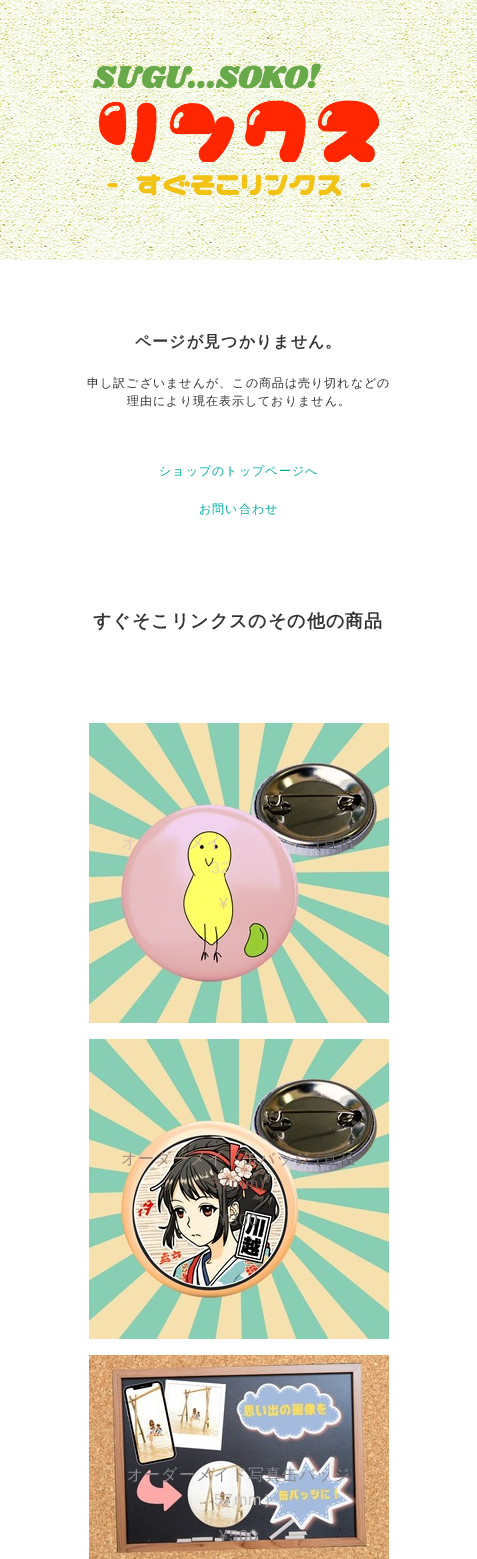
%!PS
<< /PageSize [477 1559] >> setpagedevice
/m/moveto load def
/C { dup -16 bitshift 255 div exch dup -8 bitshift 255 and 255 div exch 255 and 255 div setrgbcolor } def
/F { [ exch dup neg 0 0 3 -1 roll 0 0 ] selectfont } def
/R { rectfill } def
/I { 5 dict begin { /h /w /y /x /name } { exch def } forall
  gsave x y translate w h scale
  w h 8 [w 0 0 h 0 0] name (r) file false 3 colorimage grestore end } def
0 1559 translate 1 -1 scale
4 setmiterlimit
16#FFFFFF C
0 0 477 1559 R
(1.rgb) 0 0 477 260 I
(2.rgb) 92 63 288 133 I
/WenQuanYiZenHei-Bold 16 F
16#333333 C
135 347 m 1 0 (ページが見つかりません。) ashow
/WenQuanYiZenHei-Medium 12 F
87 387 m 1 0 (申し訳ございませんが、この商品は売り切れなどの) ashow
127 405 m 1 0 (理由により現在表示しておりません。) ashow
16#00AE9F C
159 475 m 1 0 (ショップのトップページへ) ashow
199 513 m 1 0 (お問い合わせ) ashow
/WenQuanYiZenHei-Bold 18 F
16#333333 C
93 627 m 1 0 (すぐそこリンクスのその他の商品) ashow
(3.rgb) 89 723 300 300 I
/WenQuanYiZenHei-Medium 16 F
16#E1C8B3 C
121 848 m 1 0 (オ) ashow
189 848 m 1 0 (メイ) ashow
/LiberationSans-Regular 16 F
16#67605F C
316 848 m 1 0 (\() ashow
/WenQuanYiZenHei-Medium 16 F
16#615F5E C
322 848 m 1 0 (直径) ashow
/LiberationSans-Regular 16 F
16#F0DAAC C
211 873 m 1 0 (32) ashow
16#E7C898 C
219 909 m 1 0 (¥) ashow
(4.rgb) 89 1039 300 300 I
/WenQuanYiZenHei-Medium 16 F
16#A48B7B C
121 1164 m 1 0 (オーダーメイド缶バッジ) ashow
/LiberationSans-Regular 16 F
16#67605F C
316 1164 m 1 0 (\() ashow
/WenQuanYiZenHei-Medium 16 F
16#615F5E C
322 1164 m 1 0 (直径) ashow
/LiberationSans-Regular 16 F
16#785B53 C
211 1189 m 1 0 (57mm\)) ashow
16#605D58 C
219 1225 m 1 0 (¥300) ashow
(5.rgb) 89 1355 300 204 I
/WenQuanYiZenHei-Medium 16 F
16#878890 C
127 1480 m 1 0 (オーダーメイド写真缶バッジ) ashow
/LiberationSans-Regular 16 F
16#C9C4BC C
214 1505 m 1 0 (57mm) ashow
/WenQuanYiZenHei-Medium 16 F
16#B1B2B6 C
263 1505 m 1 0 (）) ashow
/LiberationSans-Regular 16 F
16#857E80 C
219 1541 m 1 0 (¥500) ashow
showpage
